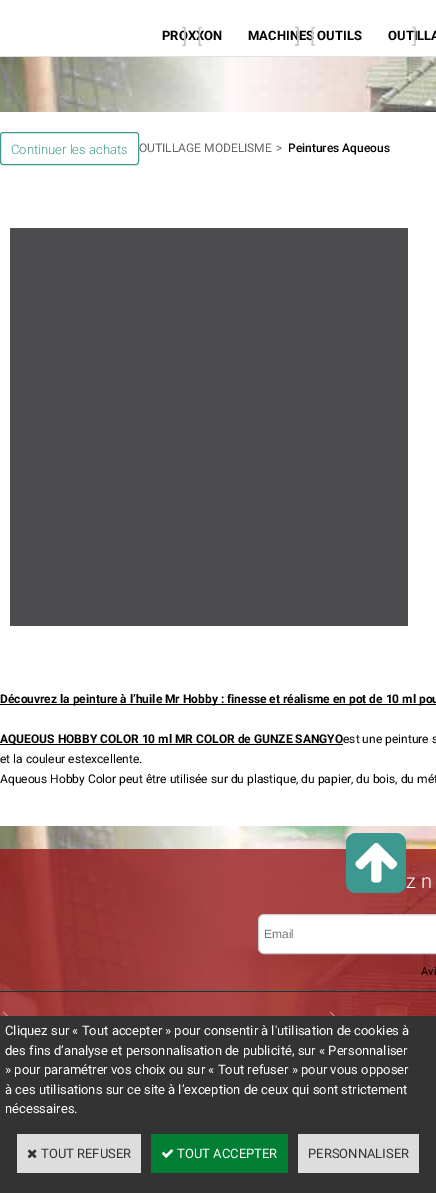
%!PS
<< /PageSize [436 1193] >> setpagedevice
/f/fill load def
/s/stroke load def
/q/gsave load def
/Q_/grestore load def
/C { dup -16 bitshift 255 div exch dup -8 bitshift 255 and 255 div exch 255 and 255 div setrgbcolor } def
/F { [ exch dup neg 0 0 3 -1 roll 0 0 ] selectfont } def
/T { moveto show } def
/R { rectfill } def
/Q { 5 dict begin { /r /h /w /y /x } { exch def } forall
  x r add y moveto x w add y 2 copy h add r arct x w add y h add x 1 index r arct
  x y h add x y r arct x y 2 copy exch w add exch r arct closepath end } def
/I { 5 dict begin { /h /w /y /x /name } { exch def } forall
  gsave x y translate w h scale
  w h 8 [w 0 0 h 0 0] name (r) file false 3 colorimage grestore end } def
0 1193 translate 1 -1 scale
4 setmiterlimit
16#FFFFFF C
0 0 436 1193 R
(1.rgb) 0 57 436 55 I
(2.rgb) 0 826 436 190 I
16#E2E2E2 C
0 56 436 1 R
/Roboto-Bold 13 F
16#000000 C
(PROXXON) 162 40 T
/Roboto-Regular 20 F
16#C7C7C7 C
(]) 182 43 T
([) 197 43 T
/Roboto-Bold 13 F
16#000000 C
(MACHINES OUTILS) 248 40 T
/Roboto-Regular 20 F
16#C0C0C0 C
(]) 295 43 T
16#C7C7C7 C
([) 310 43 T
/Roboto-Bold 13 F
16#000000 C
(OUTILLA) 388 40 T
/Roboto-Regular 20 F
16#C7C7C7 C
(]) 412 43 T
16#3D998F C
.5 132.5 138 32 2.5 Q s
/Roboto-Light 13 F
(Continuer les achats) 11 154 T
/Roboto-Regular 12 F
16#666666 C
(OUTILLAGE MODELISME) 139 152 T
(>) 276 152 T
/Roboto-Medium 12 F
16#000000 C
(Peintures Aqueous) 288 152 T
(3.rgb) 10 228 398 398 I
0 704 436 1 R
/Roboto-Bold 12 F
(Découvrez la peinture à l’huile Mr Hobby : finesse et réalisme en pot de 10 ml pou) 0 703 T
0 744 343 1 R
(AQUEOUS HOBBY COLOR 10 ml MR COLOR de GUNZE SANGYO) 0 743 T
/Roboto-Regular 12 F
(est une peinture s) 343 743 T
(et la couleur estexcellente.) 0 763 T
(Aqueous Hobby Color peut être utilisée sur du plastique, du papier, du bois, du mét) 0 783 T
16#3D998F C
346 833 60 60 10 Q f
(4.rgb) 355 843 43 40 I
16#004137 C
0 991 436 1 R
/Roboto-Light 20 F
16#FFFFFF C
(z n) 406 888 T
258.5 914.5 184 39 5.5 Q q f Q_
16#CCCCCC C
s
/LiberationSans-Regular 12 F
16#757575 C
(Email) 264 938 T
/Roboto-Regular 11 F
16#000000 C
(Avi) 421 975 T
(5.rgb) 3 1011 5 5 I
(6.rgb) 330 1011 5 5 I
16#333333 C
0 1016 436 177 R
/Roboto-Regular 13 F
16#FFFFFF C
(Cliquez sur « Tout accepter » pour consentir à l'utilisation de cookies à) 5 1035 T
(des fins d’analyse et personnalisation de publicité, sur « Personnaliser) 5 1055 T
(» pour paramétrer vos choix ou sur « Tout refuser » pour vous opposer) 5 1074 T
(à ces utilisations sur ce site à l’exception de ceux qui sont strictement) 5 1094 T
(nécessaires.) 5 1113 T
16#DDDDDD C
17 1134 124 39 R
(7.rgb) 27 1149 10 10 I
16#333333 C
(TOUT REFUSER) 41 1158 T
16#007E33 C
151 1134 137 39 R
(8.rgb) 161 1149 13 9 I
16#FFFFFF C
(TOUT ACCEPTER) 177 1158 T
16#DDDDDD C
298 1134 121 39 R
16#333333 C
(PERSONNALISER) 308 1158 T
showpage
